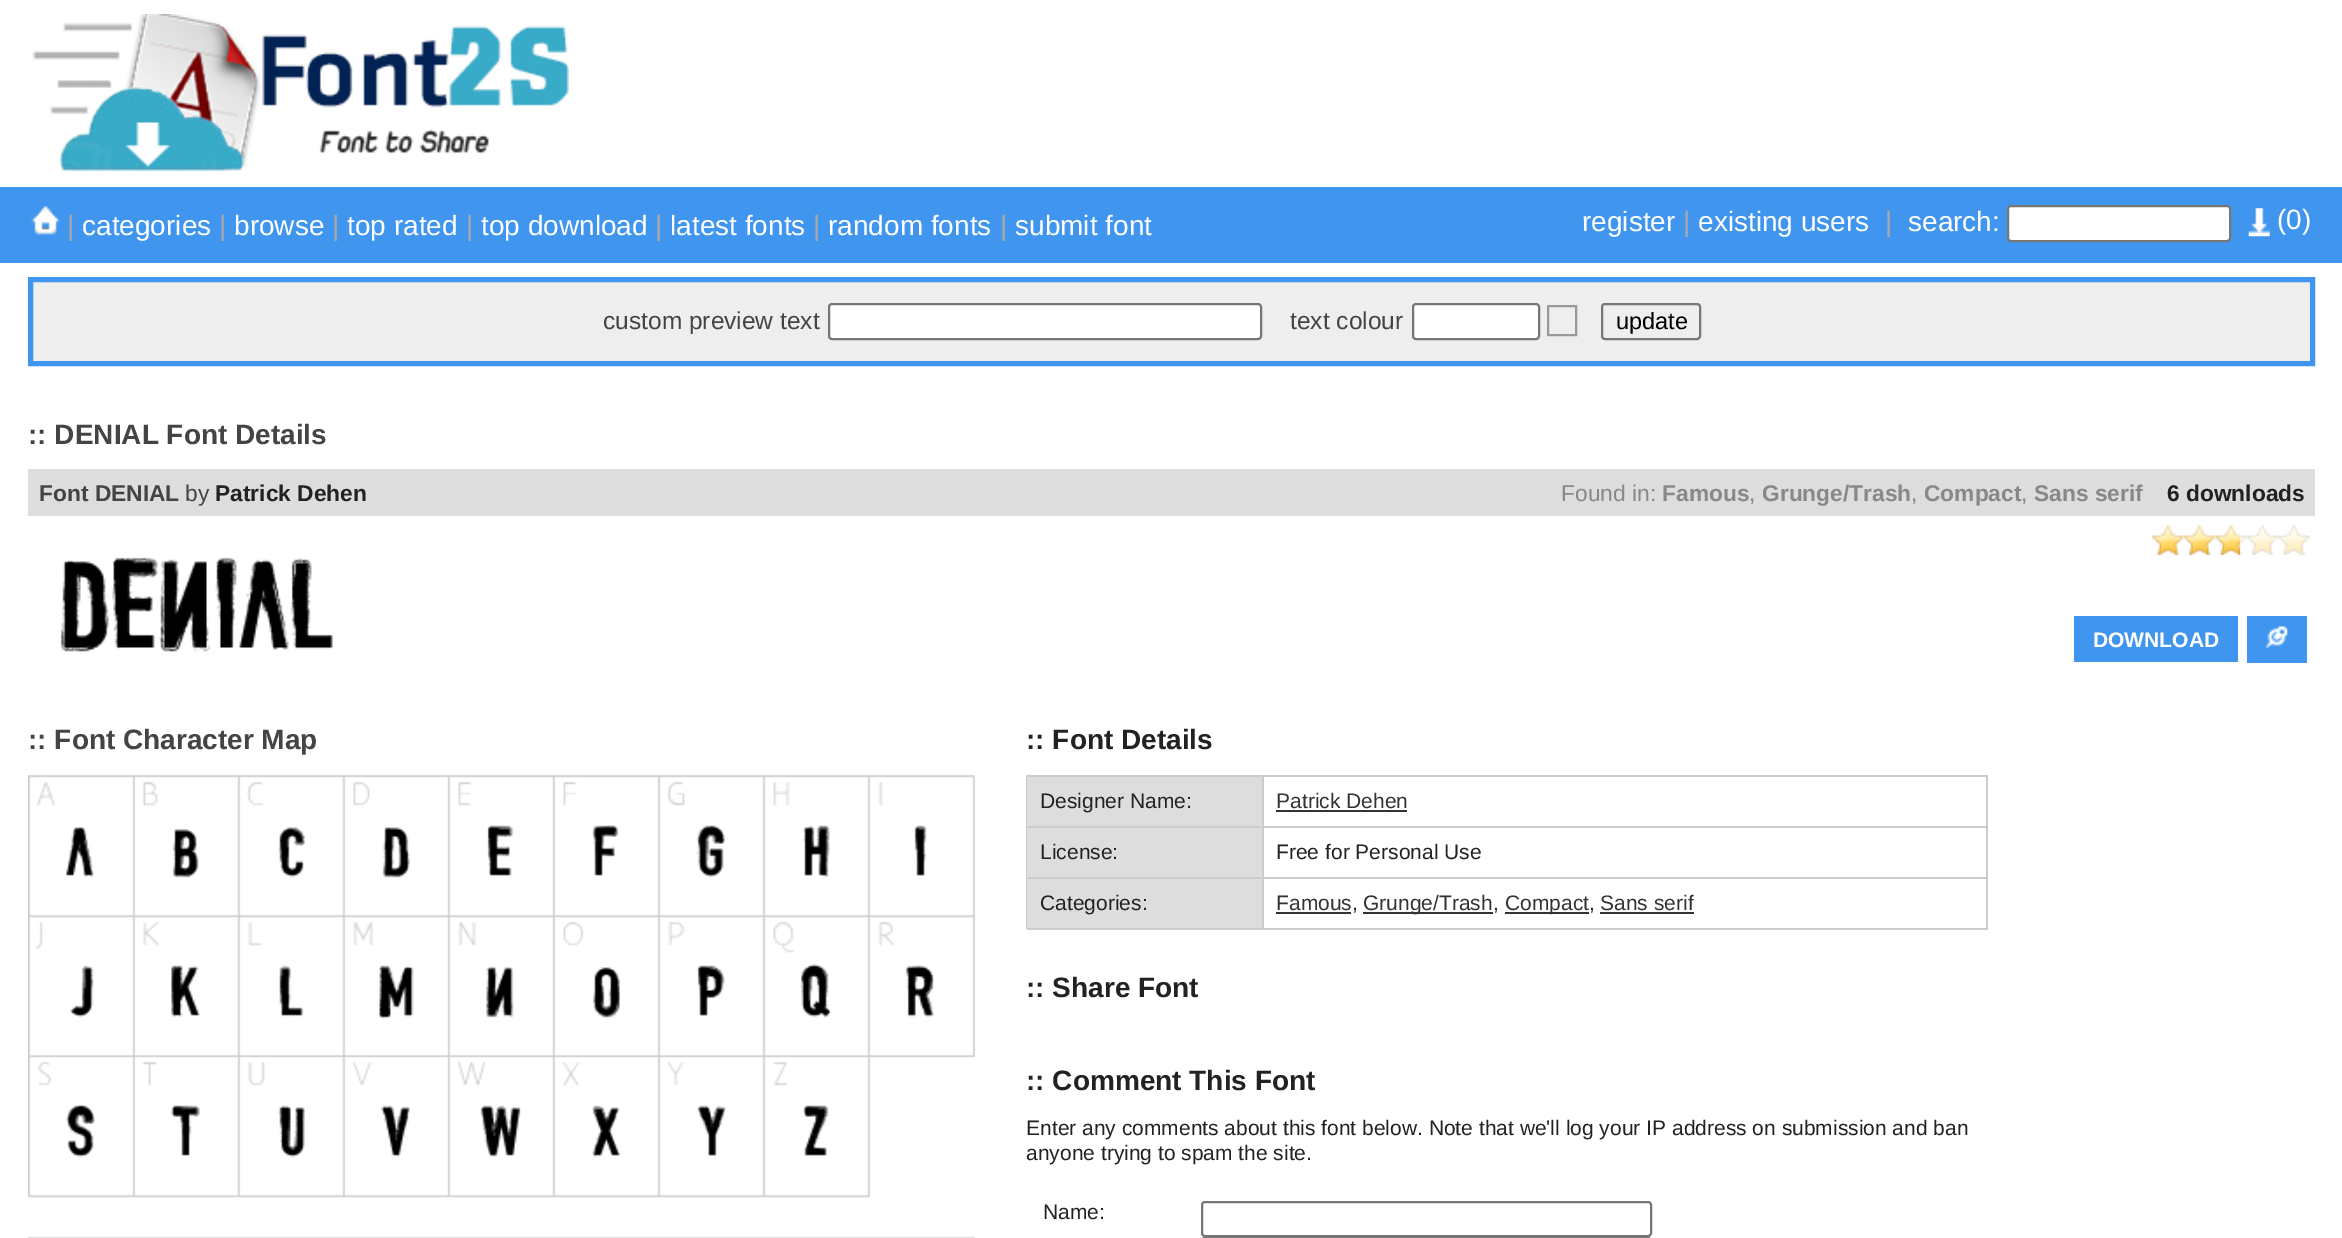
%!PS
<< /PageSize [2342 1238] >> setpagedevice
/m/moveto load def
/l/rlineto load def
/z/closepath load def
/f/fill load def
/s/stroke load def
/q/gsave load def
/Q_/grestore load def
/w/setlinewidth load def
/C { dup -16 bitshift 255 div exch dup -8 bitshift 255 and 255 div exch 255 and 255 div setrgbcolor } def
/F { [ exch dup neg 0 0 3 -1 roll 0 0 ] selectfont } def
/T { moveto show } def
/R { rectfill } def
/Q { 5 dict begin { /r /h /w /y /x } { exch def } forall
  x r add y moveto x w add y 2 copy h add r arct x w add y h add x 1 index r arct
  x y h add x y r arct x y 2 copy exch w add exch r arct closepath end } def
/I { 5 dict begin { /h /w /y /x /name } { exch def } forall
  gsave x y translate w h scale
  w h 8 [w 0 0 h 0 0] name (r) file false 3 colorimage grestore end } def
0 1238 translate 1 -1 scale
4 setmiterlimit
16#FFFFFF C
0 0 2342 1238 R
(1.rgb) 31 14 538 158 I
16#4096EE C
0 187 2342 76 R
(2.rgb) 31 206 29 29 I
/LiberationSans-Regular 28 F
16#AAAAAA C
(|) 67 235 T
16#FFFFFF C
(categories) 82 235 T
16#AAAAAA C
(|) 219 235 T
16#FFFFFF C
(browse) 234 235 T
16#AAAAAA C
(|) 332 235 T
16#FFFFFF C
(top rated) 347 235 T
16#AAAAAA C
(|) 466 235 T
16#FFFFFF C
(top download) 481 235 T
16#AAAAAA C
(|) 655 235 T
16#FFFFFF C
(latest fonts) 670 235 T
16#AAAAAA C
(|) 813 235 T
16#FFFFFF C
(random fonts) 828 235 T
16#AAAAAA C
(|) 1000 235 T
16#FFFFFF C
(submit font) 1015 235 T
(register) 1582 231 T
16#AAAAAA C
(|) 1683 231 T
16#FFFFFF C
(existing users) 1698 231 T
16#AAAAAA C
(|) 1885 231 T
16#FFFFFF C
(search:) 1908 231 T
2008 206 222 35 3 Q q f Q_
16#767676 C
2 w
s
(3.rgb) 2248 208 22 29 I
16#FFFFFF C
(\(0\)) 2277 229 T
16#EEEEEE C
30.5 279.5 m 2282 0 l 0 84 l -2282 0 l z q f Q_
16#4096EE C
5 w
s
/LiberationSans-Regular 24.5 F
16#444444 C
(custom preview text) 603 329 T
16#FFFFFF C
829 304 432 35 3 Q q f Q_
16#767676 C
2 w
s
16#444444 C
(text colour) 1290 329 T
16#FFFFFF C
1413 304 126 35 3 Q q f Q_
16#767676 C
s
16#999999 C
1548 306 28 29 rectstroke
16#767676 C
1602 304 98 35 3 Q s
/LiberationSans-Regular 23.5 F
16#000000 C
(update) 1616 329 T
/LiberationSans-Bold 28 F
16#444444 C
(:: DENIAL Font Details) 28 444 T
16#DDDDDD C
28 469 2287 47 R
/LiberationSans-Bold 22.75 F
16#444444 C
(Font DENIAL) 39 501 T
/LiberationSans-Regular 22.75 F
(by) 185 501 T
/LiberationSans-Bold 22.75 F
16#222222 C
(Patrick Dehen) 215 501 T
/LiberationSans-Regular 22.75 F
16#888888 C
(Found in:) 1561 501 T
/LiberationSans-Bold 22.75 F
(Famous) 1662 501 T
/LiberationSans-Regular 22.75 F
(,) 1749 501 T
/LiberationSans-Bold 22.75 F
(Grunge/Trash) 1762 501 T
/LiberationSans-Regular 22.75 F
(,) 1911 501 T
/LiberationSans-Bold 22.75 F
(Compact) 1924 501 T
/LiberationSans-Regular 22.75 F
(,) 2021 501 T
/LiberationSans-Bold 22.75 F
(Sans serif) 2034 501 T
16#222222 C
(6 downloads) 2167 501 T
(4.rgb) 60 557 273 95 I
(5.rgb) 2152 525 158 30 I
(6.rgb) 2152 525 88 30 I
16#4096EE C
2074 616 164 46 R
/LiberationSans-Bold 21 F
16#FFFFFF C
(DOWNLOAD) 2093 647 T
16#4096EE C
2247 616 60 47 R
(7.rgb) 2266 626 22 22 I
/LiberationSans-Bold 28 F
16#444444 C
(:: Font Character Map) 28 749 T
(8.rgb) 28 775 948 463 I
16#222222 C
(:: Font Details) 1026 749 T
16#CCCCCC C
1026 775 962 2 R
1026 775 2 154 R
16#DDDDDD C
1027 777 235 49 R
16#CCCCCC C
1262 777 2 152 R
1027 826 237 2 R
/LiberationSans-Regular 21 F
16#222222 C
(Designer Name:) 1040 808 T
16#CCCCCC C
1986 777 2 152 R
1264 826 724 2 R
16#333333 C
(Patrick Dehen) 1276 808 T
1276 810 131 2 R
16#DDDDDD C
1027 828 235 49 R
16#CCCCCC C
1027 877 961 2 R
16#222222 C
(License:) 1040 859 T
(Free for Personal Use) 1276 859 T
16#DDDDDD C
1027 879 235 49 R
16#CCCCCC C
1027 928 961 2 R
16#222222 C
(Categories:) 1040 910 T
16#333333 C
(Famous) 1276 910 T
1276 912 75 2 R
16#222222 C
(,) 1352 910 T
16#333333 C
1363 912 130 2 R
(Grunge/Trash) 1363 910 T
16#222222 C
(,) 1493 910 T
16#333333 C
1505 912 84 2 R
(Compact) 1505 910 T
16#222222 C
(,) 1589 910 T
16#333333 C
(Sans serif) 1600 910 T
1600 912 94 2 R
/LiberationSans-Bold 28 F
16#222222 C
(:: Share Font) 1026 997 T
(:: Comment This Font) 1026 1090 T
/LiberationSans-Regular 21 F
(Enter any comments about this font below. Note that we'll log your IP address on submission and ban) 1026 1135 T
(anyone trying to spam the site.) 1026 1160 T
(Name:) 1043 1219 T
16#767676 C
1202 1202 449 34 3 Q s
1202 1238 449 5 3 Q s
showpage
